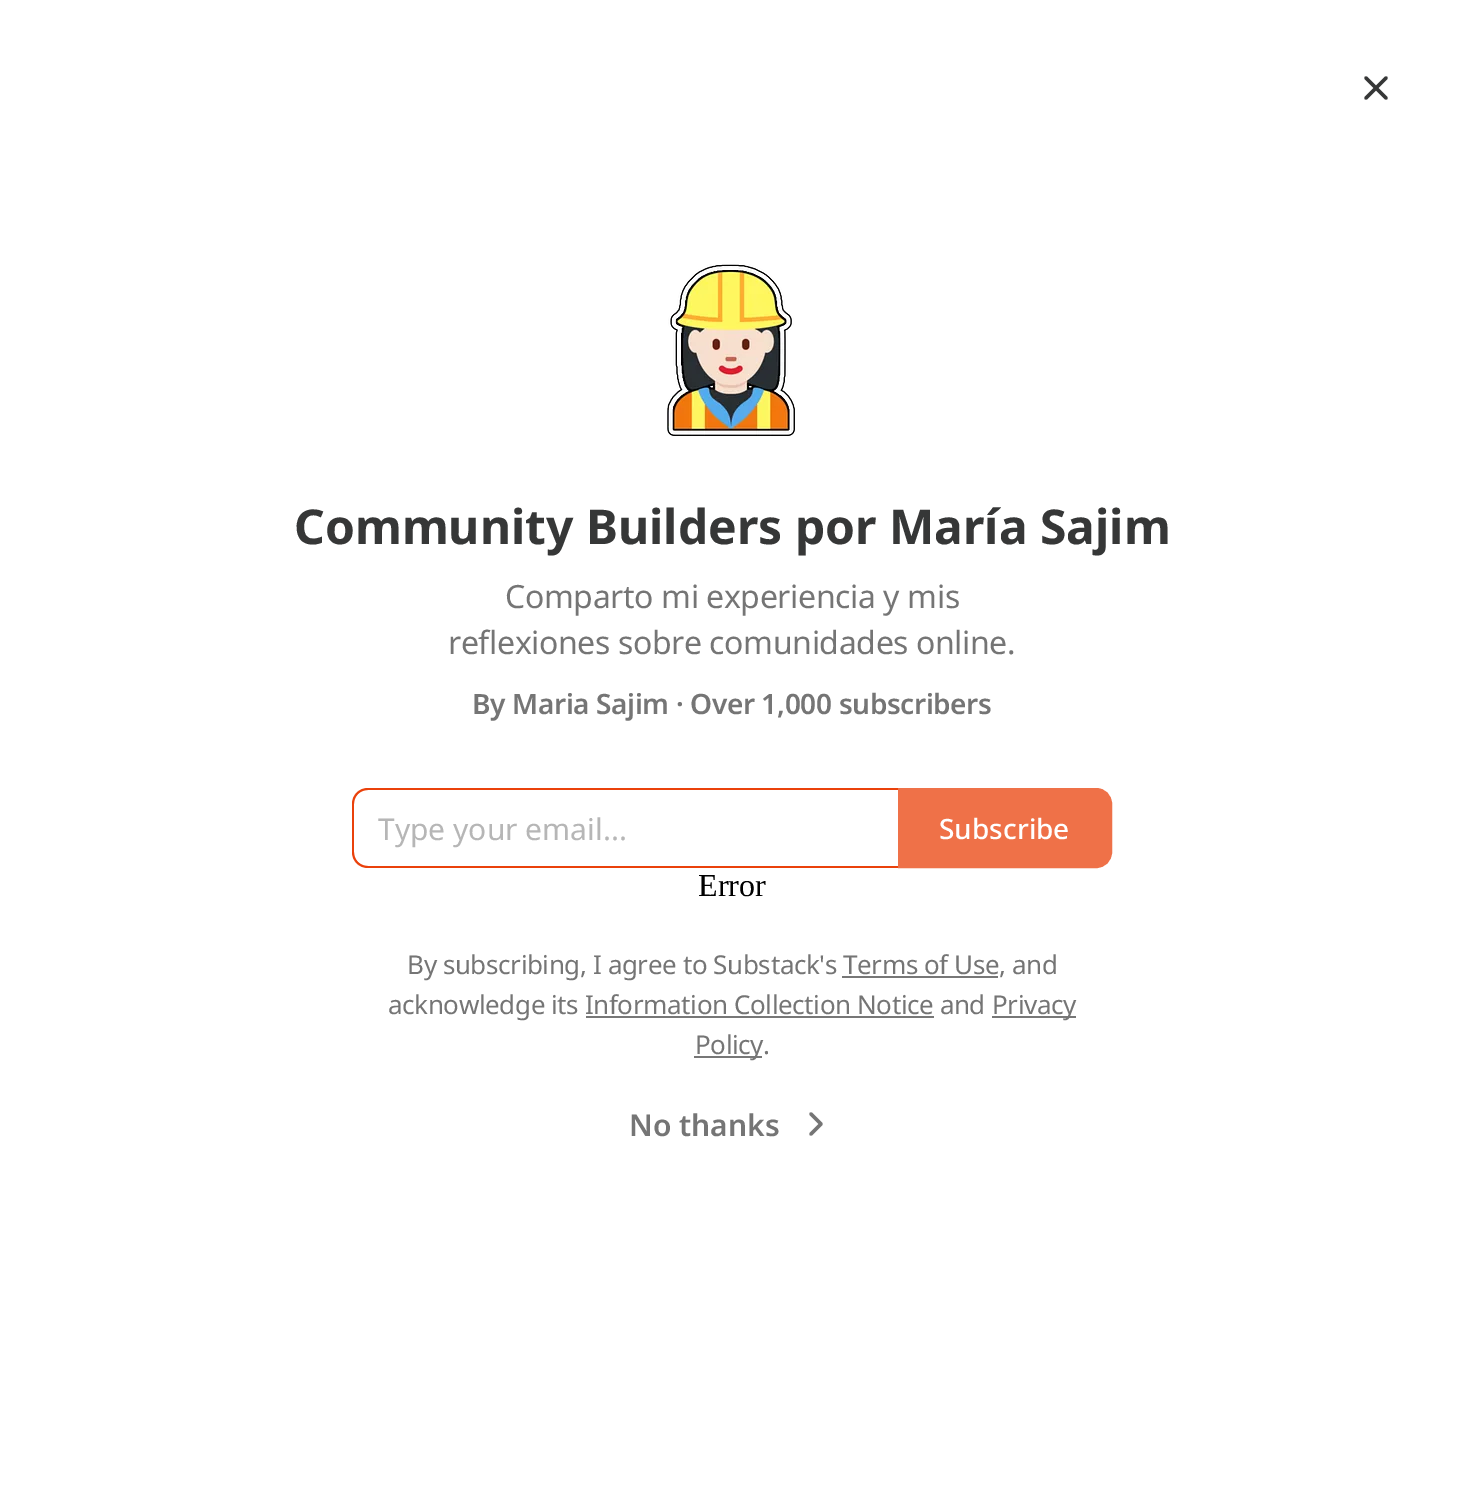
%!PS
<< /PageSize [1464 1500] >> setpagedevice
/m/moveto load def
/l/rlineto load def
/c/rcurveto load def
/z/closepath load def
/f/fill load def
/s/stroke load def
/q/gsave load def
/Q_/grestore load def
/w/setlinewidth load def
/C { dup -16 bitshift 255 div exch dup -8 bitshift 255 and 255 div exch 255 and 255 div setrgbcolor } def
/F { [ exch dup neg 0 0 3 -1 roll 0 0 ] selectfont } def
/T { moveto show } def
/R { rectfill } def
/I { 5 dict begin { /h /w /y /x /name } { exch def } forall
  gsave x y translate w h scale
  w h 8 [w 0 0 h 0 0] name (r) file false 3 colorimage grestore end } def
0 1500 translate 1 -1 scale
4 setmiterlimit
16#FFFFFF C
0 0 1464 1500 R
16#363737 C
3.3 w
1 setlinecap
1 setlinejoin
1386 78 m -20 20 l 1366 78 m 20 20 l s
(1.rgb) 667 264 128 172 I
/NotoSans-Bold 48 F
(Community Builders por María Sajim) 294 544 T
/NotoSans-Regular 32 F
16#757575 C
505 608 m -.4 0 (Comparto mi experiencia y mis) ashow
448 654 m -.4 0 (reflexiones sobre comunidades online.) ashow
/NotoSans-SemiBold 28 F
472 714 m -.35 0 (By Maria Sajim · Over 1,000 subscribers) ashow
16#EA410B C
368 788 m 530 0 l 0 80 l -530 0 l -9 0 -16 -7 -16 -16 c 0 -48 l 0 -9 7 -16 16 -16 c z 368 790 m 530 0 l 0 76 l -530 0 l -8 0 -14 -6 -14 -14 c 0 -48 l 0 -8 6 -14 14 -14 c z eofill
/NotoSans-Regular 30 F
16#B6B6B6 C
(Type your email...) 378 840 T
16#EF7148 C
899 789 m 197 0 l 8.5 0 15 6.5 15 15 c 0 48 l 0 8.5 -6.5 15 -15 15 c -197 0 l z q f Q_
2 w
0 setlinecap
0 setlinejoin
s
/NotoSans-Medium 28 F
16#FFFFFF C
(Subscribe) 939 839 T
/LiberationSerif-Regular 32 F
16#000000 C
(Error) 698 896 T
/NotoSans-Regular 26 F
16#757575 C
407 974 m -.4 0 (By subscribing, I agree to Substack's Terms of Use, and) ashow
16#777777 C
842 976 156 2 R
16#757575 C
388 1014 m -.4 0 (acknowledge its Information Collection Notice and) ashow
16#777777 C
992 1016 84 2 R
16#757575 C
992 1014 m -.4 0 (Privacy) ashow
16#777777 C
586 1016 348 2 R
694 1056 68 2 R
16#757575 C
695 1054 m -.4 0 (Policy.) ashow
/NotoSans-SemiBold 30 F
(No thanks) 629 1136 T
3.3 w
1 setlinecap
1 setlinejoin
811 1134 m 10 -10 l -10 -10 l s
showpage
